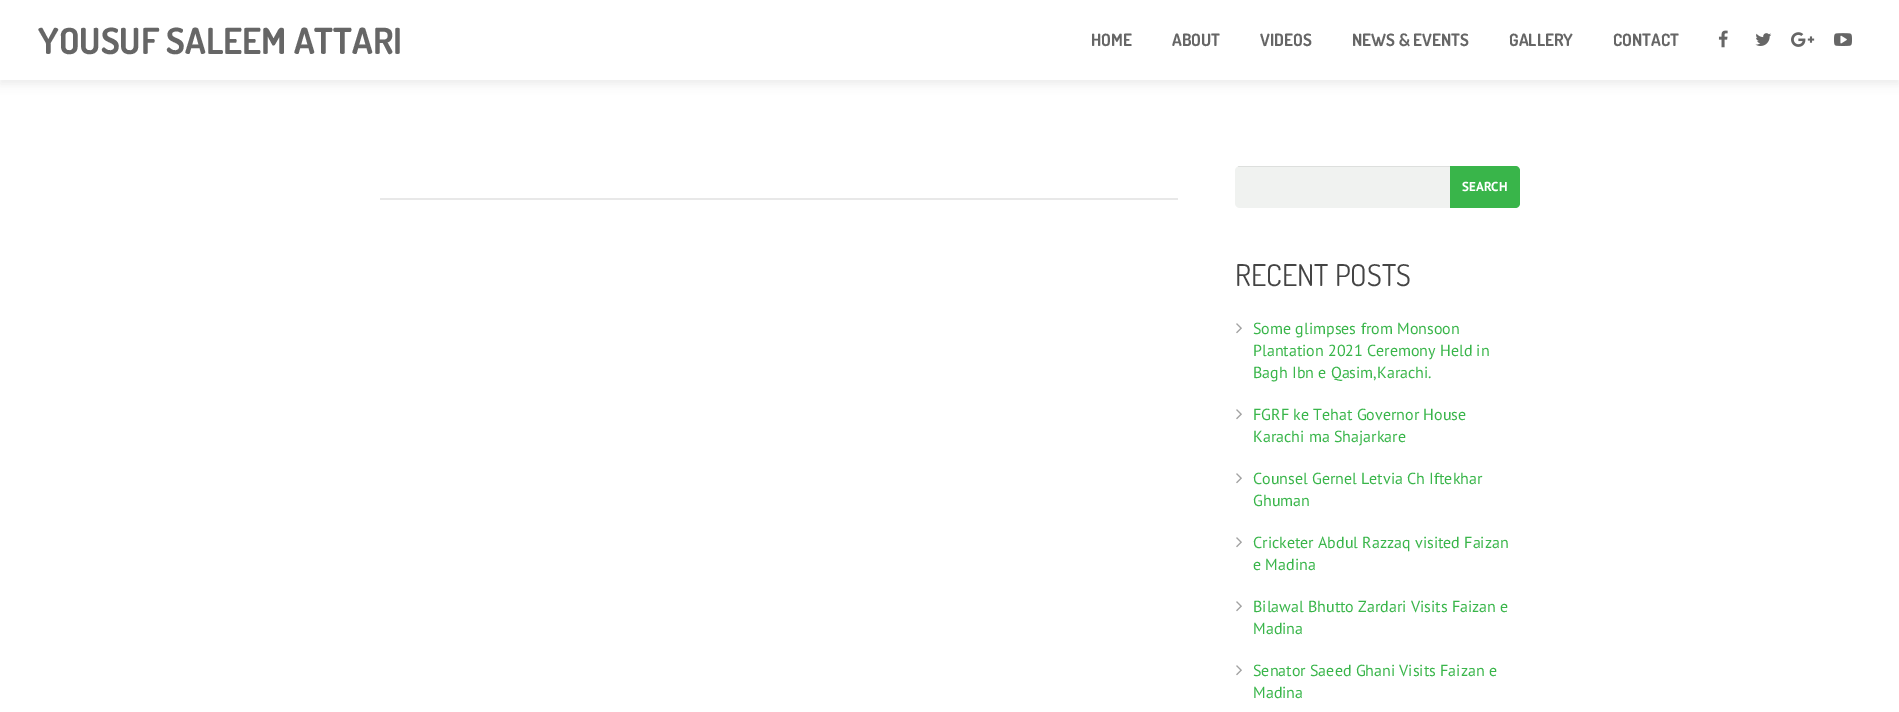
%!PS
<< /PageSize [1899 712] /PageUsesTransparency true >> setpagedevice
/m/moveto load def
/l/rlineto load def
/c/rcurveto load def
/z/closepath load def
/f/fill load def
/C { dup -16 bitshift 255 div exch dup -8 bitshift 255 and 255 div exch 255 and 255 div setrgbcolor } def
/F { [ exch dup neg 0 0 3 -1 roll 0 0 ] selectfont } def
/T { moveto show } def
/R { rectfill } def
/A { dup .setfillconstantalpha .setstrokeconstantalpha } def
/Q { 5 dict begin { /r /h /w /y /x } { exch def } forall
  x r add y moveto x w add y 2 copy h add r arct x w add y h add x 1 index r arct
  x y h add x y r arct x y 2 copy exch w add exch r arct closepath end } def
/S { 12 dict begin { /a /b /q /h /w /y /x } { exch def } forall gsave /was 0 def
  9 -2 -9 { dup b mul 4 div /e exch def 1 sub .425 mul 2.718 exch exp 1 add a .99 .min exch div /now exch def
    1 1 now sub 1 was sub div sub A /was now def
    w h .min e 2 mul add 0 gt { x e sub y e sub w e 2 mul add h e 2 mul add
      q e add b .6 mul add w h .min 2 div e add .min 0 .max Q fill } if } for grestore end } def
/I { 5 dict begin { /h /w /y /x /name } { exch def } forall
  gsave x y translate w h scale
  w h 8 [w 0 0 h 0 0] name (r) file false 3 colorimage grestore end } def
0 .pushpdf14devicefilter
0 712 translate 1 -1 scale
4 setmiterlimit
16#FFFFFF C
0 0 1899 712 R
16#000000 C
0 4 1899 80 0 5 .07 S
16#FFFFFF C
0 0 1899 80 R
/Dosis-Bold 36 F
16#666666 C
(YOUSUF SALEEM ATTARI) 38 54 T
/Dosis-Bold 17 F
(HOME) 1091 46 T
(ABOUT) 1172 46 T
(VIDEOS) 1260 46 T
(NEWS & EVENTS) 1352 46 T
(GALLERY) 1509 46 T
(CONTACT) 1613 46 T
(1.rgb) 1718 30 10 18 I
(2.rgb) 1755 33 17 13 I
(3.rgb) 1791 32 24 15 I
(4.rgb) 1834 33 18 13 I
16#E8E8E8 C
380 198 798 2 R
16#F0F2F0 C
1235 166 285 42 5 Q f
0.08 A
16#000000 C
1238 166 280 1 R
1 A
16#39B54A C
1450 166 m 65 0 l 3 0 5 2 5 5 c 0 32 l 0 3 -2 5 -5 5 c -65 0 l z f
/PTSans-Bold 13 F
16#FFFFFF C
(SEARCH) 1462 191 T
/Dosis-Regular 30 F
16#444444 C
(RECENT POSTS) 1235 286 T
(5.rgb) 1236 323 6 11 I
/PTSans-Regular 16 F
16#39B54A C
(Some glimpses from Monsoon) 1253 334 T
(Plantation 2021 Ceremony Held in) 1253 356 T
(Bagh Ibn e Qasim,Karachi.) 1253 378 T
(5.rgb) 1236 409 6 11 I
(FGRF ke Tehat Governor House) 1253 420 T
(Karachi ma Shajarkare) 1253 442 T
(5.rgb) 1236 473 6 11 I
(Counsel Gernel Letvia Ch Iftekhar) 1253 484 T
(Ghuman) 1253 506 T
(5.rgb) 1236 537 6 11 I
(Cricketer Abdul Razzaq visited Faizan) 1253 548 T
(e Madina) 1253 570 T
(5.rgb) 1236 601 6 11 I
(Bilawal Bhutto Zardari Visits Faizan e) 1253 612 T
(Madina) 1253 634 T
(5.rgb) 1236 665 6 11 I
(Senator Saeed Ghani Visits Faizan e) 1253 676 T
(Madina) 1253 698 T
.poppdf14devicefilter showpage
